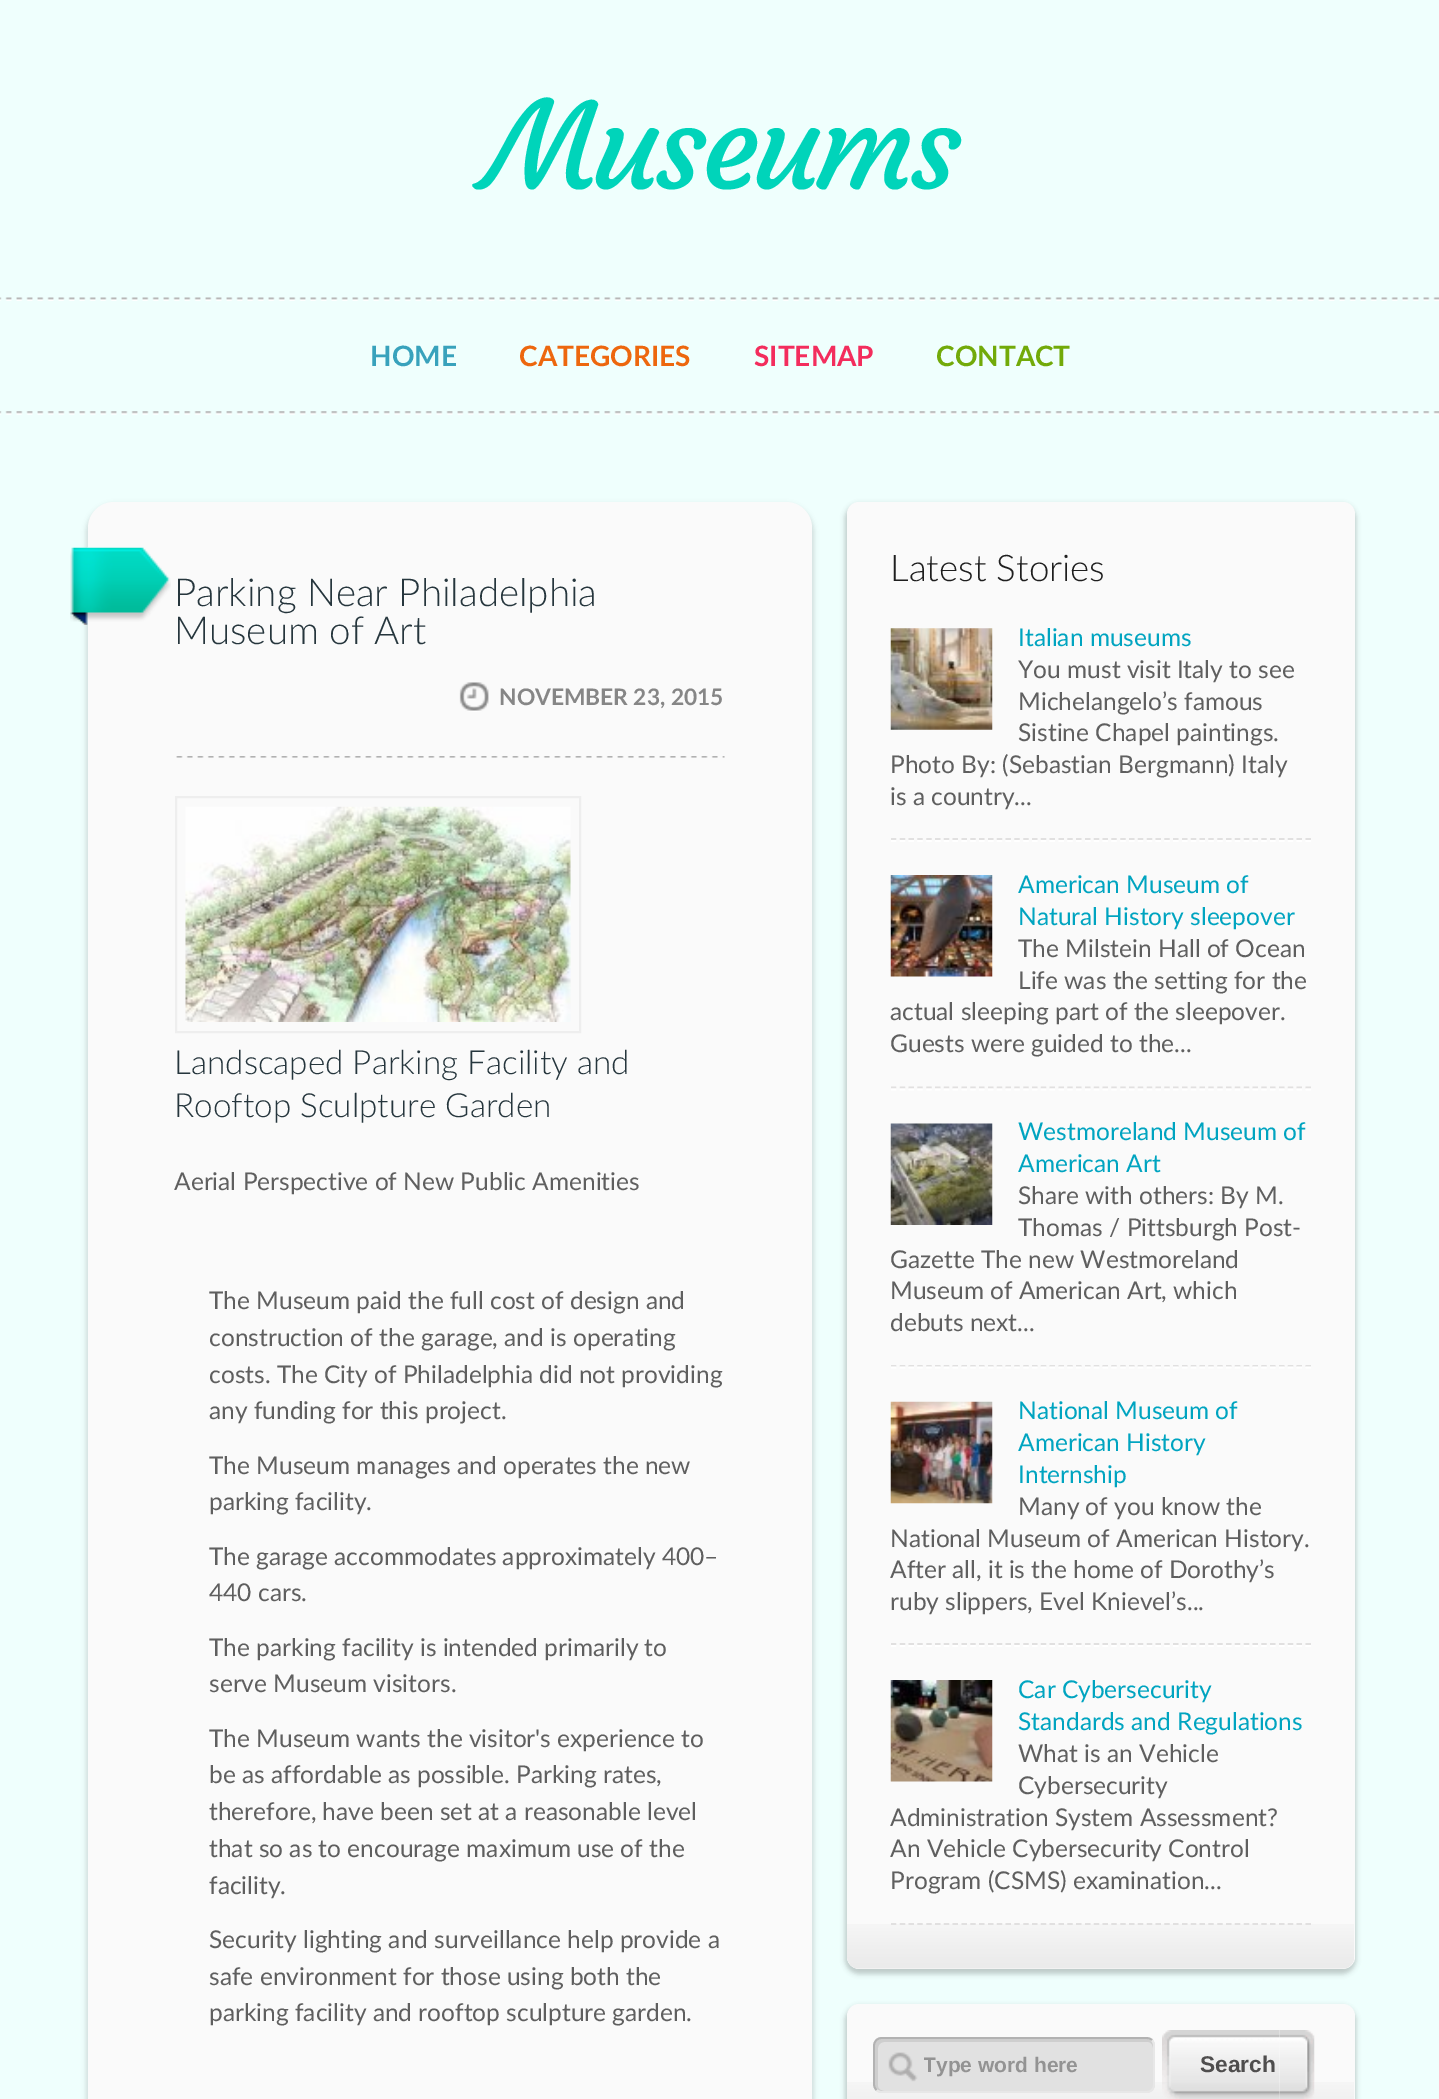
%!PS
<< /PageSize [1439 2099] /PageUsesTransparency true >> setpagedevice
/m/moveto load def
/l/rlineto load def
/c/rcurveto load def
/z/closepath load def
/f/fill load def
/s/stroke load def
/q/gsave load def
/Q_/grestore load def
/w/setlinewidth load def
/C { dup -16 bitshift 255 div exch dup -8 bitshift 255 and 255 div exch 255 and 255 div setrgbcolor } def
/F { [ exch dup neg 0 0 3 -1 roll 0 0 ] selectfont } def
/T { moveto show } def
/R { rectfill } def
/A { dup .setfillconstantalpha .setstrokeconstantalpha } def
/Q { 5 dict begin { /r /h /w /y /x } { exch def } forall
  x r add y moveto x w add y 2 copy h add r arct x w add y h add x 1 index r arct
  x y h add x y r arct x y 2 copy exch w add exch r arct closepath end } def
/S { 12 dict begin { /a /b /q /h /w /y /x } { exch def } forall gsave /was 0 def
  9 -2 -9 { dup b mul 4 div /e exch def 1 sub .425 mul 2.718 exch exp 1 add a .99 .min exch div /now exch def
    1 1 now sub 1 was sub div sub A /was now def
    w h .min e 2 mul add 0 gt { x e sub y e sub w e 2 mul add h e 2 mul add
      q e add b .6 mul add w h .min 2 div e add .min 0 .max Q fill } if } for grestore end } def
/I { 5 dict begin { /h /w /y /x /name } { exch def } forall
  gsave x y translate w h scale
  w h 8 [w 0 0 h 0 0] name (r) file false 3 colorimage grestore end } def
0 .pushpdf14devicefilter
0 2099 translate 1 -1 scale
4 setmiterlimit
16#EFFFFD C
0 0 1439 2099 R
/Courgette-Regular 121 F
16#00D4BA C
485 189 m -4.75 0 (Museums) ashow
(1.rgb) 0 297 1439 4 I
(2.rgb) 0 411 1439 4 I
/Lato-Bold 28 F
16#38A2BC C
(HOME) 370 366 T
16#ED670E C
(CATEGORIES) 519 366 T
16#F32D5D C
(SITEMAP) 754 366 T
16#72AA09 C
(CONTACT) 936 366 T
16#000000 C
86 504 728 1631 28 2.5 .13 S
16#FAFAFA C
88 502 724 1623 26 Q f
(3.rgb) 70 547 101 78 I
/Lato-Light 38.5 F
16#26363D C
(Parking Near Philadelphia) 174 606 T
(Museum of Art) 174 644 T
(4.rgb) 459 682 30 30 I
/Lato-Bold 22.75 F
16#868686 C
(NOVEMBER 23, 2015) 499 705 T
(5.rgb) 176 756 549 2 I
16#EEEEEE C
2 w
176 797 404 235 rectstroke
(6.rgb) 185 806 386 216 I
/Lato-Light 33.25 F
16#26363D C
(Landscaped Parking Facility and) 174 1074 T
(Rooftop Sculpture Garden) 174 1117 T
/Lato-Regular 24.5 F
16#5F5F5F C
(Aerial Perspective of New Public Amenities) 174 1190 T
(The Museum paid the full cost of design and) 209 1309 T
(construction of the garage, and is operating) 209 1346 T
(costs. The City of Philadelphia did not providing) 209 1383 T
(any funding for this project.) 209 1419 T
(The Museum manages and operates the new) 209 1474 T
(parking facility.) 209 1510 T
(The garage accommodates approximately 400–) 209 1565 T
(440 cars.) 209 1601 T
(The parking facility is intended primarily to) 209 1656 T
(serve Museum visitors.) 209 1692 T
(The Museum wants the visitor's experience to) 209 1747 T
(be as affordable as possible. Parking rates,) 209 1783 T
(therefore, have been set at a reasonable level) 209 1820 T
(that so as to encourage maximum use of the) 209 1857 T
(facility.) 209 1894 T
(Security lighting and surveillance help provide a) 209 1948 T
(safe environment for those using both the) 209 1985 T
(parking facility and rooftop sculpture garden.) 209 2021 T
16#000000 C
845 504 511 1470 14 2.5 .2 S
16#FAFAFA C
847 502 508 1467 12 Q f
(7.rgb) 847 1924 507 45 I
/Lato-Light 36.75 F
16#1F1F1F C
(Latest Stories) 890 581 T
16#E1E0E0 C
1.8 w
[5.25 3.57] 0 setdash
891 839 m 420 0 l s
(8.rgb) 890 628 103 102 I
/Lato-Regular 24.5 F
16#00A4C0 C
(Italian museums) 1018 646 T
16#5F5F5F C
(You must visit Italy to see) 1018 678 T
(Michelangelo’s famous) 1018 710 T
(Sistine Chapel paintings.) 1018 741 T
(Photo By: \(Sebastian Bergmann\) Italy) 890 773 T
(is a country...) 890 805 T
16#FFFFFF C
891 841 m 420 0 l s
16#E1E0E0 C
891 1087.5 m 420 0 l s
(9.rgb) 890 875 103 102 I
16#00A4C0 C
(American Museum of) 1018 893 T
(Natural History sleepover) 1018 925 T
16#5F5F5F C
(The Milstein Hall of Ocean) 1018 957 T
(Life was the setting for the) 1018 989 T
(actual sleeping part of the sleepover.) 890 1020 T
(Guests were guided to the...) 890 1052 T
16#FFFFFF C
891 1089.5 m 420 0 l s
16#E1E0E0 C
891 1366 m 420 0 l s
(10.rgb) 890 1123 103 102 I
16#00A4C0 C
(Westmoreland Museum of) 1018 1140 T
(American Art) 1018 1172 T
16#5F5F5F C
(Share with others: By M.) 1018 1204 T
(Thomas / Pittsburgh Post-) 1018 1236 T
(Gazette The new Westmoreland) 890 1268 T
(Museum of American Art, which) 890 1299 T
(debuts next...) 890 1331 T
16#FFFFFF C
891 1367.5 m 420 0 l s
16#E1E0E0 C
891 1644 m 420 0 l s
(11.rgb) 890 1401 103 103 I
16#00A4C0 C
(National Museum of) 1018 1419 T
(American History) 1018 1451 T
(Internship) 1018 1483 T
16#5F5F5F C
(Many of you know the) 1018 1515 T
(National Museum of American History.) 890 1547 T
(After all, it is the home of Dorothy’s) 890 1578 T
(ruby slippers, Evel Knievel’s...) 890 1610 T
16#FFFFFF C
891 1646 m 420 0 l s
16#E1E0E0 C
891 1924 m 420 0 l s
(12.rgb) 890 1680 103 102 I
16#00A4C0 C
(Car Cybersecurity) 1018 1698 T
(Standards and Regulations) 1018 1730 T
16#5F5F5F C
(What is an Vehicle) 1018 1762 T
(Cybersecurity) 1018 1794 T
(Administration System Assessment?) 890 1826 T
(An Vehicle Cybersecurity Control) 890 1857 T
(Program \(CSMS\) examination...) 890 1889 T
16#000000 C
845 2006 511 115 14 2.5 .2 S
16#FAFAFA C
847 2004 508 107 12 Q f
(13.rgb) 847 2082 507 17 I
16#E1E1E1 C
873 2037 282 56 9 Q f
(14.rgb) 888 2052 30 30 I
16#CECECE C
884 2042 m 264 0 l 3 0 5 3 5 6 c 0 -2 l 0 -4 -3 -7 -7 -7 c -264 0 l -4 0 -7 3 -7 7 c 0 38 l 0 4 3 7 7 7 c 2 0 l -3 0 -6 -2 -6 -5 c 0 -38 l 0 -3 3 -6 6 -6 c z f
16#E7E7E7 C
[] 0 setdash
1152 2040 m 1.5 1.5 2 3.5 2 6 c 0 38 l 0 2.5 -.5 4.5 -2 6 c -1.5 1.5 -3.5 2 -6 2 c -264 0 l -2 0 -4 -.5 -5.5 -2 c s
16#B2B2B2 C
876.5 2090 m -1.5 -1.5 -2.5 -3.5 -2.5 -6 c 0 -38 l 0 -2.5 1 -4.5 2.5 -6 c 1.5 -1.5 3.5 -2 5.5 -2 c 264 0 l 2.5 0 4.5 .5 6 2 c s
q
924 2053 212 24 rectclip
/LiberationSans-Bold 21 F
16#939393 C
(Type word here) 923 2072 T
Q_
(15.rgb) 1279 2030 36 69 I
(16.rgb) 1162 2030 118 69 I
/LiberationSans-Bold 22.75 F
16#4F4E4E C
(Search) 1200 2072 T
.poppdf14devicefilter showpage
